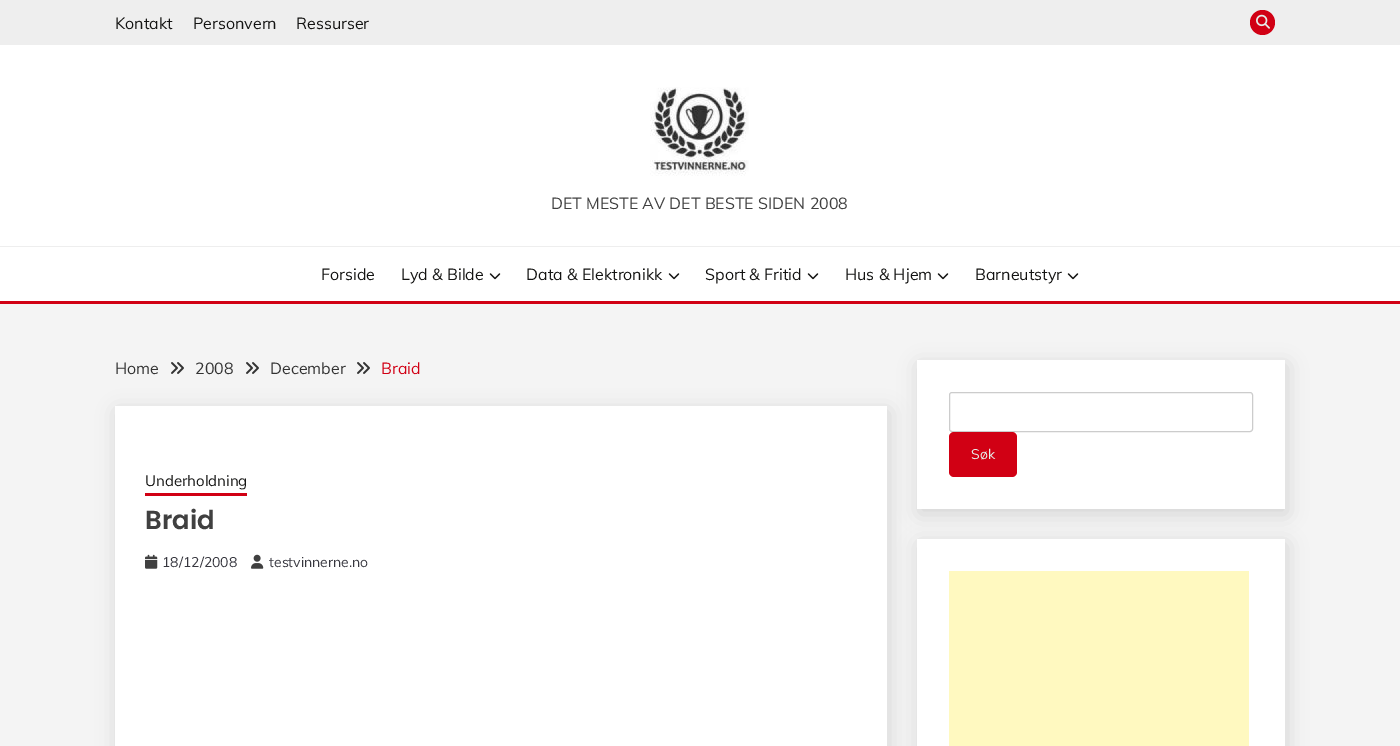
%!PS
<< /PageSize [1400 746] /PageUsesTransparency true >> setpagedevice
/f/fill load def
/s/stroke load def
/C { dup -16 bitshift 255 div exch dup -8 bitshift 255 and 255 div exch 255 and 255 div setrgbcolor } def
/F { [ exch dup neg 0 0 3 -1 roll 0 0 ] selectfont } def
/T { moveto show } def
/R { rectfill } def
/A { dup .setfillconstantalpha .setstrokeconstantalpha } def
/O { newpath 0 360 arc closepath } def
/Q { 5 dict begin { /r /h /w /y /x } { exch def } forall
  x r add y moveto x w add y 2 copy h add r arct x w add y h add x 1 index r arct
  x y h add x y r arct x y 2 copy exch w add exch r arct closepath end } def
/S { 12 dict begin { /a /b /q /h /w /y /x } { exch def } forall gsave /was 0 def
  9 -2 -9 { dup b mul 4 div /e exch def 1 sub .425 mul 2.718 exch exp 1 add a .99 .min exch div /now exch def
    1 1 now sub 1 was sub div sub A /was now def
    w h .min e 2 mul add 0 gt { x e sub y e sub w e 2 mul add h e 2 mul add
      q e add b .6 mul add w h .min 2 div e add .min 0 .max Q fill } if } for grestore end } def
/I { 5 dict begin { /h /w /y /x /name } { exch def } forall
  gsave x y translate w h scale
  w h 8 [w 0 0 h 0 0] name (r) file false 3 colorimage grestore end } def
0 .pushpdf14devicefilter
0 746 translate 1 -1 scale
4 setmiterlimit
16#F4F4F4 C
0 0 1400 746 R
16#FFFFFF C
0 45 1400 256 R
16#EEEEEE C
0 0 1400 45 R
/Muli-Regular 16 F
16#141413 C
(Kontakt) 115 29 T
(Personvern) 193 29 T
(Ressurser) 296 29 T
16#D10014 C
1262.5 22.5 12.5 O f
(1.rgb) 1256 14 14 15 I
16#EEEEEE C
0 246 1400 1 R
(2.rgb) 650 87 99 89 I
16#404040 C
(DET MESTE AV DET BESTE SIDEN 2008) 551 209 T
16#D10014 C
0 301 1400 3 R
16#141413 C
(Forside) 321 280 T
(Lyd & Bilde) 401 280 T
(3.rgb) 489 273 12 7 I
(Data & Elektronikk) 526 280 T
(3.rgb) 668 273 12 7 I
(Sport & Fritid) 705 280 T
(3.rgb) 807 273 12 7 I
(Hus & Hjem) 845 280 T
(3.rgb) 937 273 12 7 I
(Barneutstyr) 975 280 T
(3.rgb) 1067 273 12 7 I
16#333333 C
(Home) 115 374 T
(4.rgb) 171 362 13 12 I
(2008) 195 374 T
(4.rgb) 246 362 13 12 I
(December) 270 374 T
(4.rgb) 357 362 13 12 I
16#D10014 C
(Braid) 381 374 T
16#000000 C
117 411 772 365 0 10 .14 S
16#FFFFFF C
115 406 772 340 R
/Muli-Regular 15 F
16#141413 C
(Underholdning) 145 486 T
16#D10014 C
145 493 102 3 R
/Poppins-SemiBold 26 F
16#404040 C
(Braid) 145 529 T
(5.rgb) 145 554 13 15 I
/Muli-Regular 14 F
16#37373F C
(18/12/2008) 162 567 T
(6.rgb) 251 554 13 15 I
(testvinnerne.no) 269 567 T
16#000000 C
919 365 368 149 0 10 .14 S
16#FFFFFF C
917 360 368 149 R
16#CCCCCC C
949.5 392.5 303 39 2.5 Q s
16#D10014 C
949 432 68 45 5 Q f
16#E5ECE9 C
(Søk) 971 459 T
16#000000 C
919 544 368 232 0 10 .14 S
16#FFFFFF C
917 539 368 207 R
16#FFF9C0 C
949 571 300 175 R
.poppdf14devicefilter showpage
